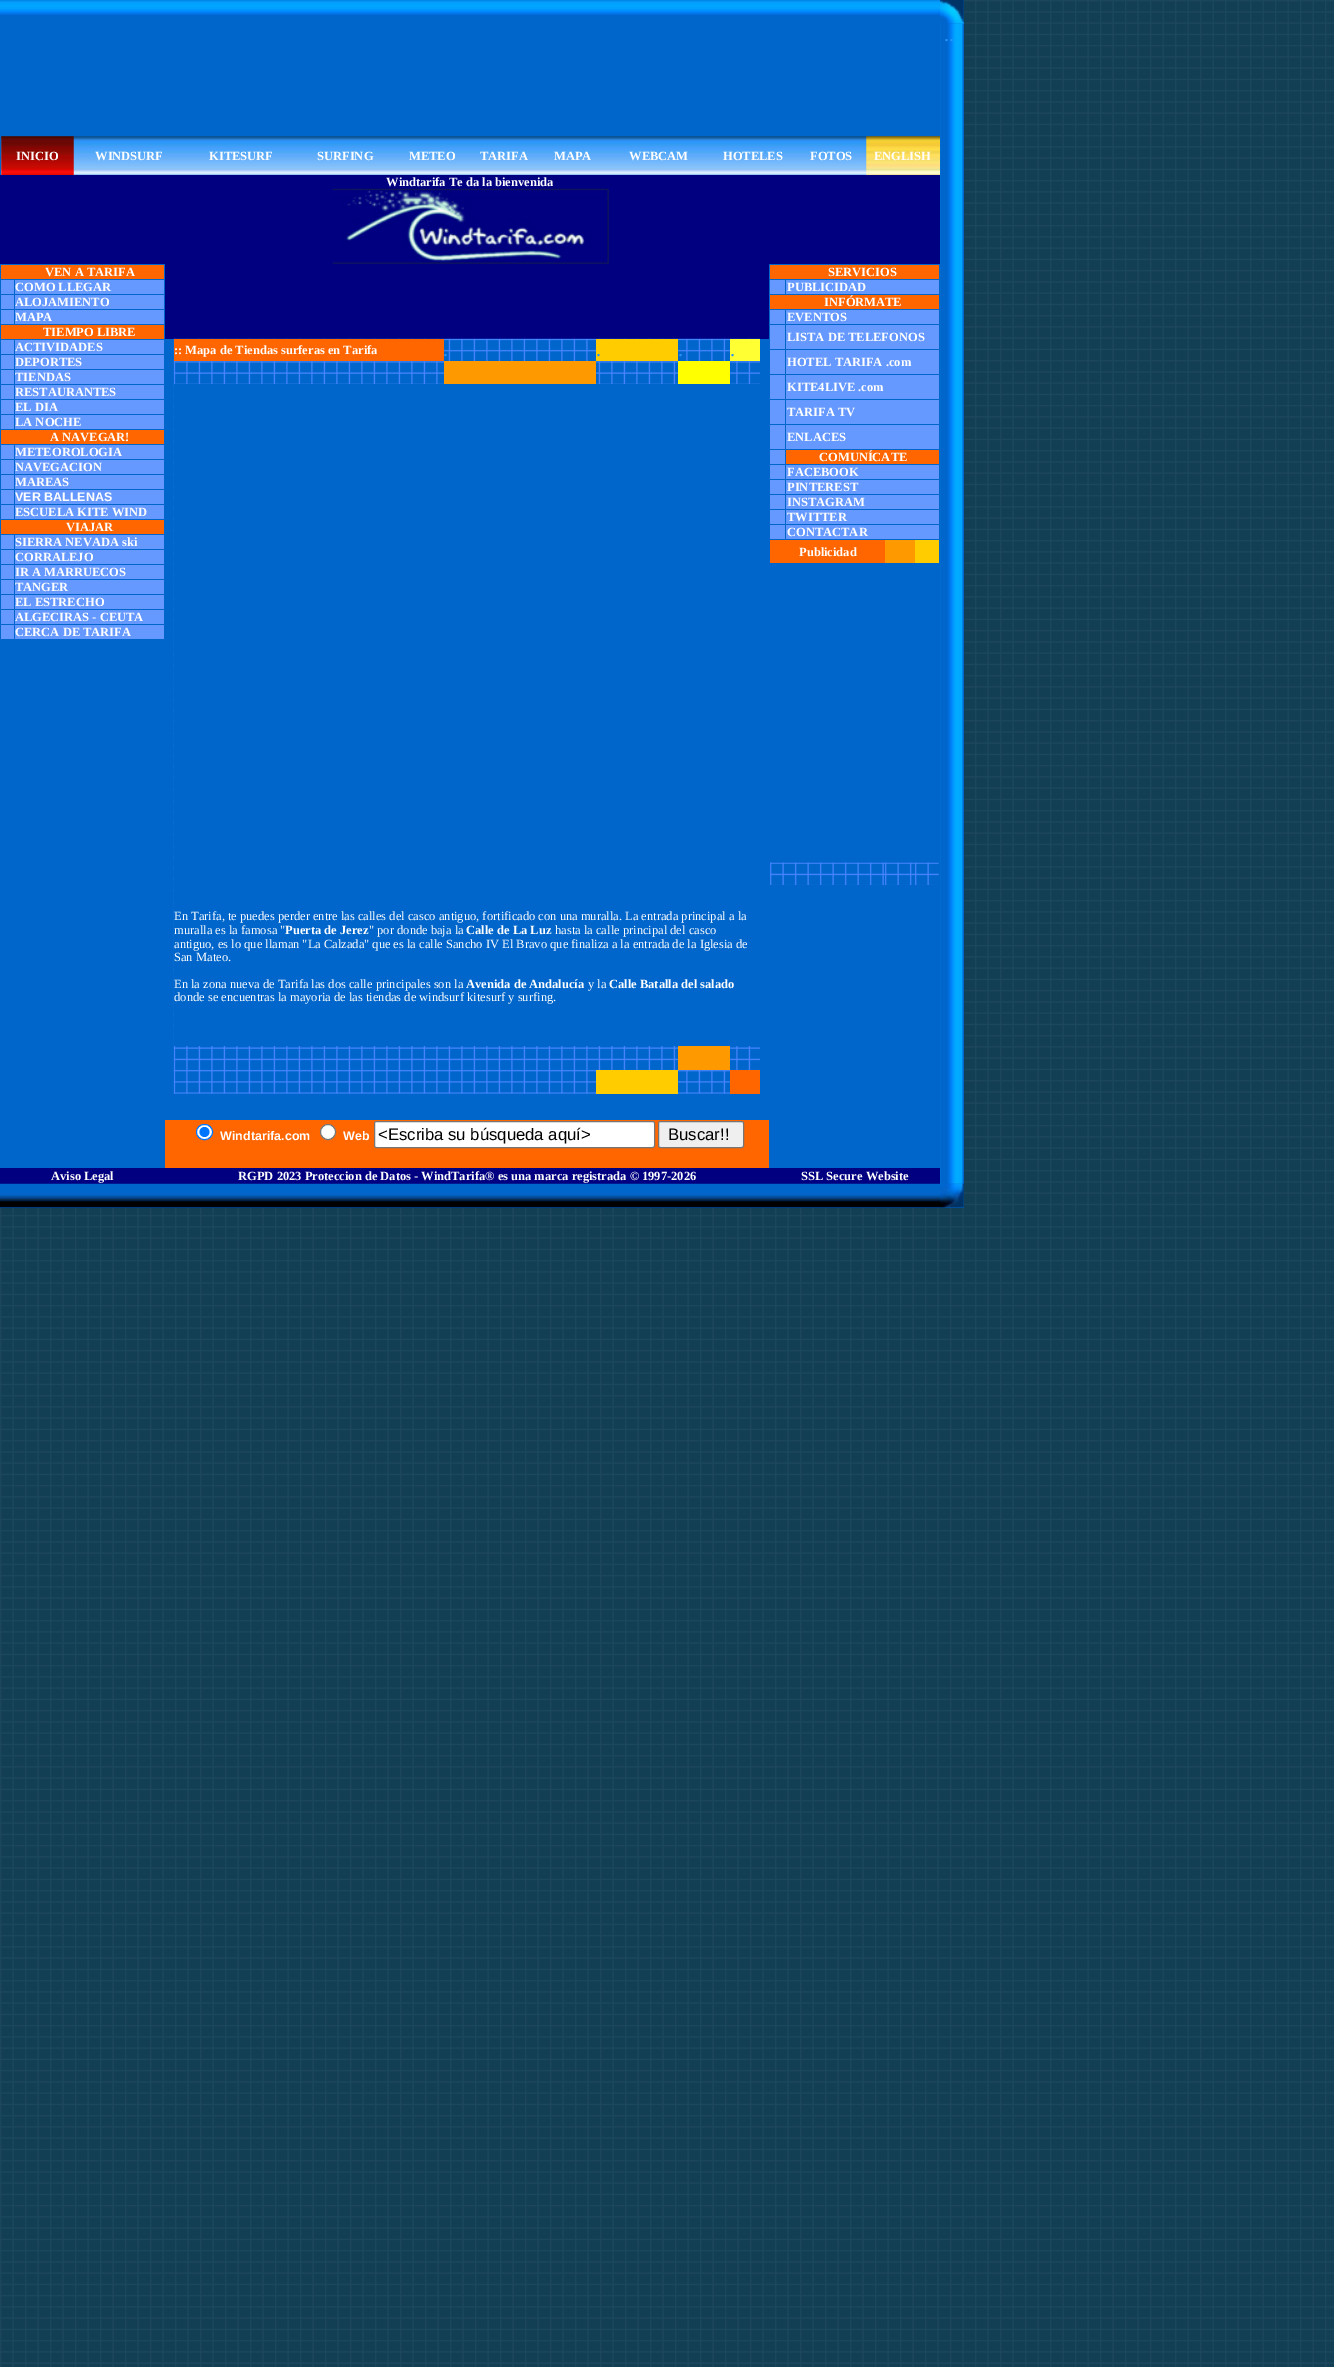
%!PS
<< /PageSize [1334 2367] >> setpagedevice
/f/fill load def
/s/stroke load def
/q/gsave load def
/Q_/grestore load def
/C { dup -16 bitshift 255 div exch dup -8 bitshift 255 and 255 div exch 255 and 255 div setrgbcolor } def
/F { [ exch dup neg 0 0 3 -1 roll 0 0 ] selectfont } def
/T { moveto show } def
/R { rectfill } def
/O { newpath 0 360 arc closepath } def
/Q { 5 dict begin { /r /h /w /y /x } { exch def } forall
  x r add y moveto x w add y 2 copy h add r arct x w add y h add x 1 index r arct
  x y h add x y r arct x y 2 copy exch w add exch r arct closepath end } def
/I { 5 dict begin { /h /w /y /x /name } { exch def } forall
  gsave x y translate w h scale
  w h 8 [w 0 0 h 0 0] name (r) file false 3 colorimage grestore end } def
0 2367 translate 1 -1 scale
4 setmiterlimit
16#FFFFFF C
0 0 1334 2367 R
(1.rgb) 0 0 1334 2367 I
16#0066CC C
0 15 940 160 R
(2.rgb) 0 0 940 15 I
940 0 24 1208 R
(3.rgb) 940 0 24 24 I
(4.rgb) 940 23 24 1161 I
/LiberationSerif-Regular 20 F
16#2894F8 C
(..) 944 41 T
(5.rgb) 1 136 939 39 I
(6.rgb) 1 136 73 39 I
/LiberationSerif-Bold 12.5 F
16#FFFFFF C
(INICIO) 16 160 T
(WINDSURF) 95 160 T
(KITESURF) 209 160 T
(SURFING) 317 160 T
(METEO) 409 160 T
(TARIFA) 480 160 T
(MAPA) 554 160 T
(WEBCAM) 629 160 T
(HOTELES) 723 160 T
(FOTOS) 810 160 T
(7.rgb) 866 136 74 39 I
(ENGLISH) 874 160 T
16#000080 C
0 175 940 89 R
16#FFFFFF C
(Windtarifa Te da la bienvenida) 386 186 T
(8.rgb) 332 188 277 76 I
16#0066CC C
0 264 165 904 R
16#FF6600 C
1 265 163 14 R
16#FFFFFF C
(VEN A TARIFA) 45 276 T
16#6699FF C
1 280 13 14 R
15 280 149 14 R
16#FFFFFF C
(COMO LLEGAR) 15 291 T
16#6699FF C
1 295 13 14 R
15 295 149 14 R
16#FFFFFF C
(ALOJAMIENTO) 15 306 T
16#6699FF C
1 310 13 14 R
15 310 149 14 R
16#FFFFFF C
(MAPA) 15 321 T
16#FF6600 C
1 325 163 14 R
16#FFFFFF C
(TIEMPO LIBRE) 43 336 T
16#6699FF C
1 340 13 14 R
15 340 149 14 R
16#FFFFFF C
(ACTIVIDADES) 15 351 T
16#6699FF C
1 355 13 14 R
15 355 149 14 R
16#FFFFFF C
(DEPORTES) 15 366 T
16#6699FF C
1 370 13 14 R
15 370 149 14 R
16#FFFFFF C
(TIENDAS) 15 381 T
16#6699FF C
1 385 13 14 R
15 385 149 14 R
16#FFFFFF C
(RESTAURANTES) 15 396 T
16#6699FF C
1 400 13 14 R
15 400 149 14 R
16#FFFFFF C
(EL DIA) 15 411 T
16#6699FF C
1 415 13 14 R
15 415 149 14 R
16#FFFFFF C
(LA NOCHE) 15 426 T
16#FF6600 C
1 430 163 14 R
16#FFFFFF C
(A NAVEGAR!) 50 441 T
16#6699FF C
1 445 13 14 R
15 445 149 14 R
16#FFFFFF C
(METEOROLOGIA) 15 456 T
16#6699FF C
1 460 13 14 R
15 460 149 14 R
16#FFFFFF C
(NAVEGACION) 15 471 T
16#6699FF C
1 475 13 14 R
15 475 149 14 R
16#FFFFFF C
(MAREAS) 15 486 T
16#6699FF C
1 490 13 14 R
15 490 149 14 R
/LiberationSans-Bold 12.5 F
16#FFFFFF C
(VER BALLENAS) 15 501 T
16#6699FF C
1 505 13 14 R
15 505 149 14 R
/LiberationSerif-Bold 12.5 F
16#FFFFFF C
(ESCUELA KITE WIND) 15 516 T
16#FF6600 C
1 520 163 14 R
16#FFFFFF C
(VIAJAR) 66 531 T
16#6699FF C
1 535 13 14 R
15 535 149 14 R
16#FFFFFF C
(SIERRA NEVADA ski) 15 546 T
16#6699FF C
1 550 13 14 R
15 550 149 14 R
16#FFFFFF C
(CORRALEJO) 15 561 T
16#6699FF C
1 565 13 14 R
15 565 149 14 R
16#FFFFFF C
(IR A MARRUECOS) 15 576 T
16#6699FF C
1 580 13 14 R
15 580 149 14 R
16#FFFFFF C
(TANGER) 15 591 T
16#6699FF C
1 595 13 14 R
15 595 149 14 R
16#FFFFFF C
(EL ESTRECHO) 15 606 T
16#6699FF C
1 610 13 14 R
15 610 149 14 R
16#FFFFFF C
(ALGECIRAS - CEUTA) 15 621 T
16#6699FF C
1 625 13 14 R
15 625 149 14 R
16#FFFFFF C
(CERCA DE TARIFA) 15 636 T
16#000080 C
165 264 604 75 R
16#0066CC C
769 264 171 904 R
16#FF6600 C
770 265 169 14 R
16#FFFFFF C
(SERVICIOS) 828 276 T
16#6699FF C
770 280 15 14 R
786 280 153 14 R
16#FFFFFF C
(PUBLICIDAD) 787 291 T
16#FF6600 C
770 295 169 14 R
16#FFFFFF C
(INFÓRMATE) 824 306 T
16#6699FF C
770 310 15 14 R
786 310 153 14 R
16#FFFFFF C
(EVENTOS) 787 321 T
16#6699FF C
770 325 15 24 R
786 325 153 24 R
16#FFFFFF C
(LISTA DE TELEFONOS) 787 341 T
16#6699FF C
770 350 15 24 R
786 350 153 24 R
16#FFFFFF C
(HOTEL TARIFA .com) 787 366 T
16#6699FF C
770 375 15 24 R
786 375 153 24 R
16#FFFFFF C
(KITE4LIVE .com) 787 391 T
16#6699FF C
770 400 15 24 R
786 400 153 24 R
16#FFFFFF C
(TARIFA TV) 787 416 T
16#6699FF C
770 425 15 24 R
786 425 153 24 R
16#FFFFFF C
(ENLACES) 787 441 T
16#6699FF C
770 450 15 14 R
16#FF6600 C
786 450 153 14 R
16#FFFFFF C
(COMUNÍCATE) 819 461 T
16#6699FF C
770 465 15 14 R
786 465 153 14 R
16#FFFFFF C
(FACEBOOK) 787 476 T
16#6699FF C
770 480 15 14 R
786 480 153 14 R
16#FFFFFF C
(PINTEREST) 787 491 T
16#6699FF C
770 495 15 14 R
786 495 153 14 R
16#FFFFFF C
(INSTAGRAM) 787 506 T
16#6699FF C
770 510 15 14 R
786 510 153 14 R
16#FFFFFF C
(TWITTER) 787 521 T
16#6699FF C
770 525 15 14 R
786 525 153 14 R
16#FFFFFF C
(CONTACTAR) 787 536 T
16#FF6600 C
770 540 115 23 R
16#FFFFFF C
(Publicidad) 799 556 T
16#FF9900 C
885 540 30 23 R
16#FFCC00 C
915 540 24 23 R
(9.rgb) 770 862 115 23 I
(10.rgb) 885 862 30 23 I
(11.rgb) 915 862 24 23 I
16#0066CC C
165 339 604 781 R
(12.rgb) 173 338 587 756 I
16#FF6600 C
174 339 270 22 R
16#FFFFFF C
(:: Mapa de Tiendas surferas en Tarifa) 174 354 T
/LiberationSerif-Regular 20 F
16#2894F8 C
(.) 443 356 T
16#FFCC00 C
596 339 82 22 R
16#2894F8 C
(.) 596 356 T
(.) 678 356 T
16#FFFF33 C
730 339 30 22 R
16#2894F8 C
(.) 730 356 T
16#FF9900 C
444 361 152 23 R
16#FFFF00 C
678 361 52 23 R
16#0066CC C
174 384 586 662 R
/LiberationSerif-Regular 12.5 F
16#FFFFFF C
(En Tarifa, te puedes perder entre las calles del casco antiguo, fortificado con una muralla. La entrada principal a la) 174 920 T
(muralla es la famosa ") 174 934 T
/LiberationSerif-Bold 12.5 F
(Puerta de Jerez) 285 934 T
/LiberationSerif-Regular 12.5 F
(" por donde baja la) 369 934 T
/LiberationSerif-Bold 12.5 F
(Calle de La Luz) 466 934 T
/LiberationSerif-Regular 12.5 F
(hasta la calle principal del casco) 555 934 T
(antiguo, es lo que llaman "La Calzada" que es la calle Sancho IV El Bravo que finaliza a la entrada de la Iglesia de) 174 948 T
(San Mateo.) 174 961 T
(En la zona nueva de Tarifa las dos calle principales son la) 174 988 T
/LiberationSerif-Bold 12.5 F
(Avenida de Andalucía) 466 988 T
/LiberationSerif-Regular 12.5 F
(y la) 588 988 T
/LiberationSerif-Bold 12.5 F
(Calle Batalla del salado) 609 988 T
/LiberationSerif-Regular 12.5 F
(donde se encuentras la mayoria de las tiendas de windsurf kitesurf y surfing.) 174 1001 T
16#FF9900 C
678 1046 52 24 R
16#FFCC00 C
596 1070 82 24 R
16#FF6600 C
730 1070 30 24 R
165 1120 604 48 R
16#FFFFFF C
196.5 1124.5 16 15 7.5 Q q f Q_
16#0075FF C
s
204.5 1132 5 O f
/LiberationSans-Bold 12.5 F
16#FFFFFF C
(Windtarifa.com) 220 1140 T
328 1132 7.5 O q f Q_
16#767676 C
s
16#FFFFFF C
(Web) 343 1140 T
374.5 1121.5 280 26 2 Q q f Q_
16#767676 C
s
/LiberationSans-Regular 16.7 F
16#000000 C
(<Escriba su búsqueda aquí>) 378 1140 T
16#EFEFEF C
658.5 1121.5 85 26 2 Q q f Q_
16#767676 C
s
16#000000 C
(Buscar!!) 668 1140 T
16#000080 C
0 1168 940 16 R
/LiberationSerif-Bold 12.5 F
16#FFFFFF C
(Aviso Legal) 51 1180 T
(RGPD 2023 Proteccion de Datos - WindTarifa® es una marca registrada © 1997-2026) 238 1180 T
(SSL Secure Website) 801 1180 T
16#0066CC C
0 1207 940 1 R
(13.rgb) 0 1183 940 25 I
(14.rgb) 940 1183 24 25 I
showpage
